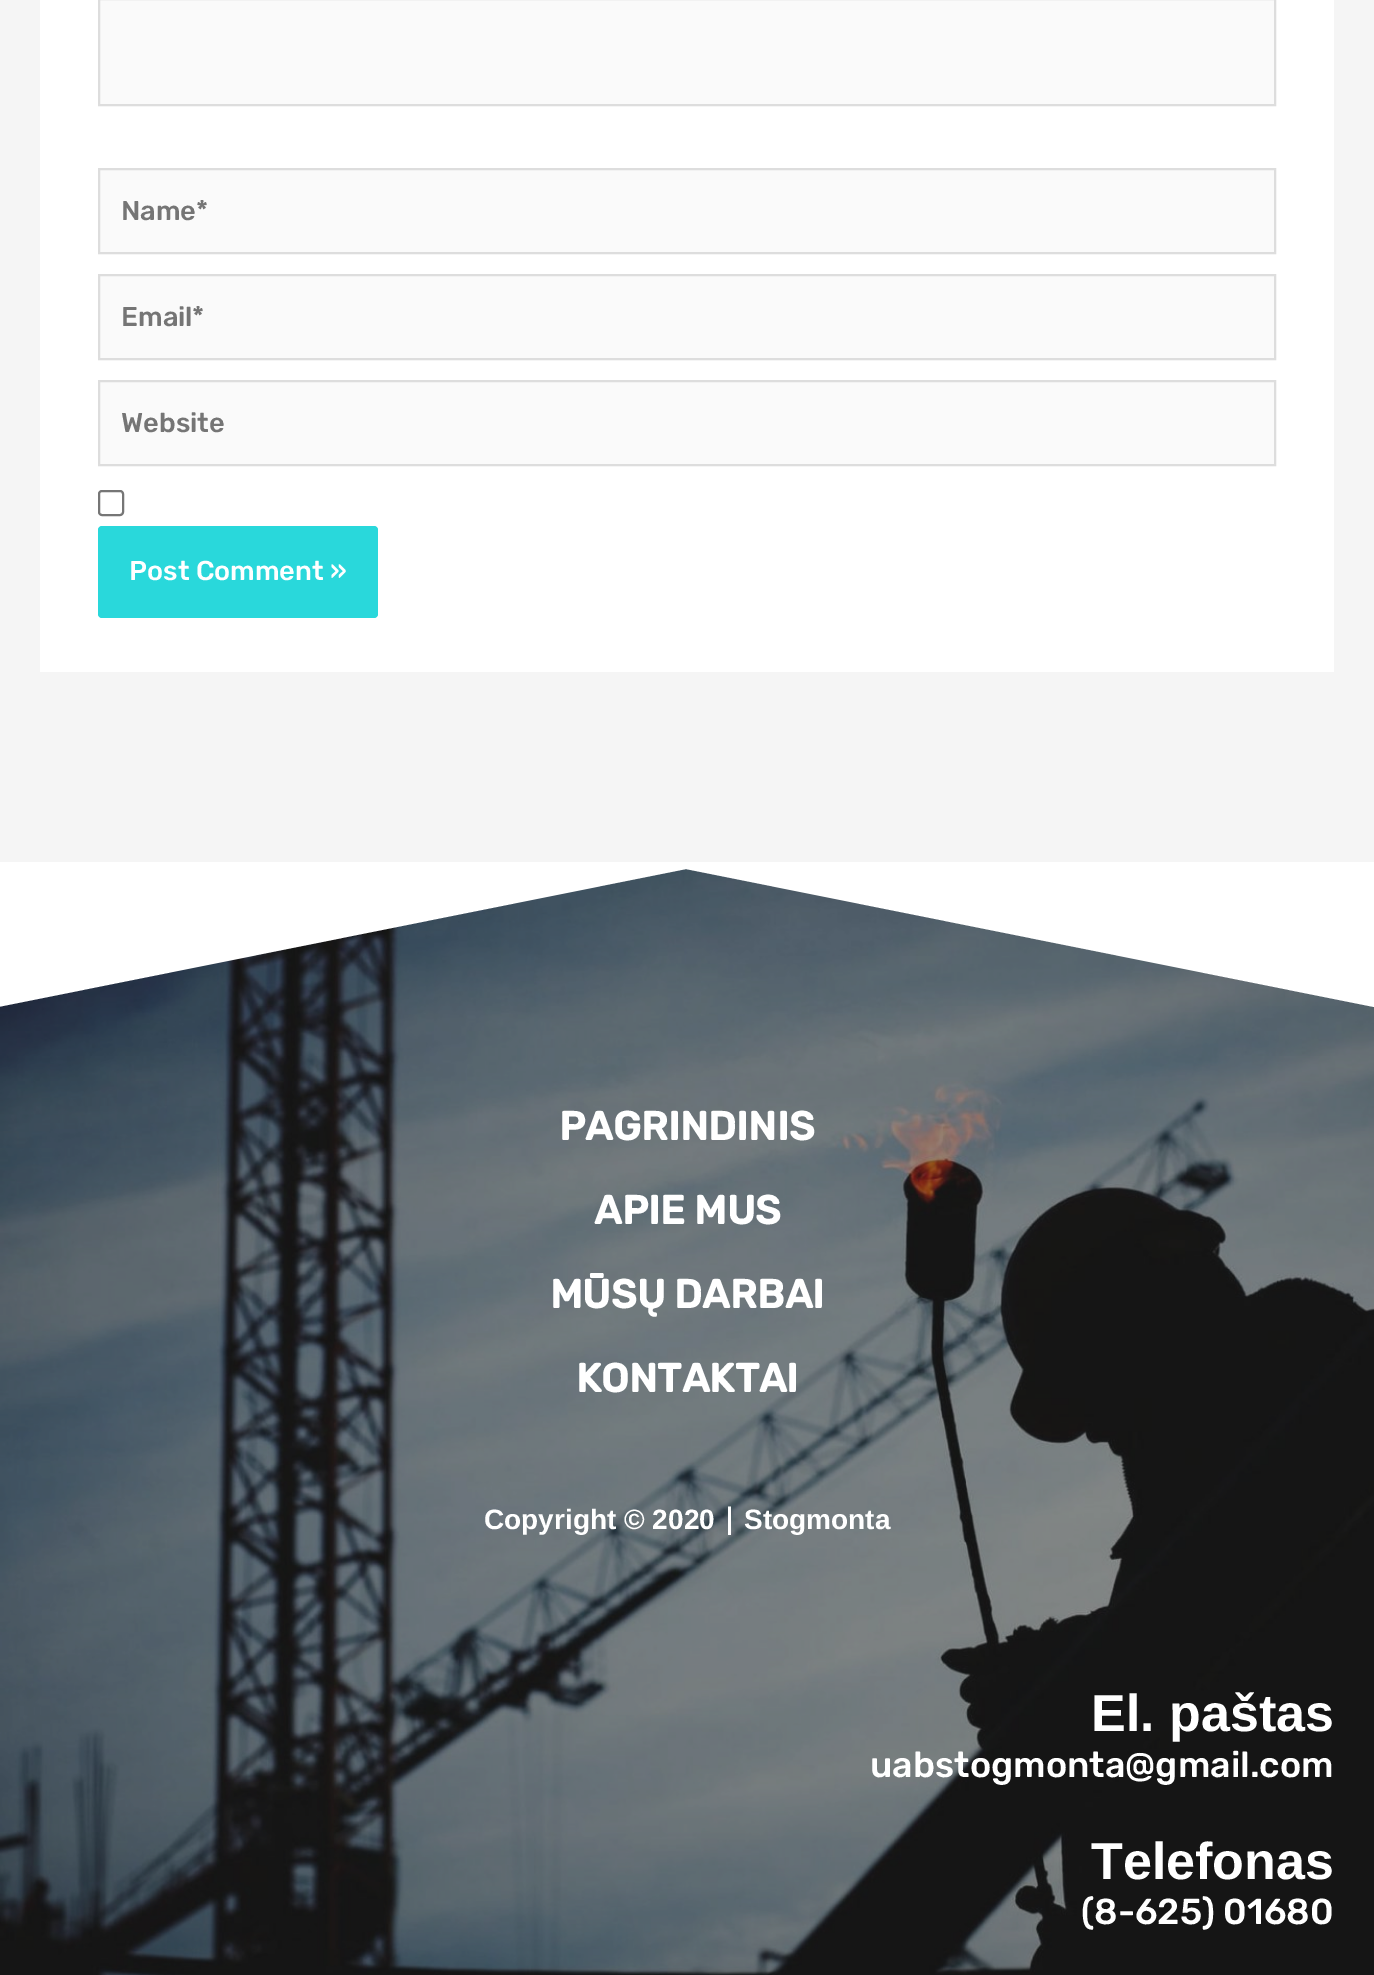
%!PS
<< /PageSize [1374 1975] >> setpagedevice
/m/moveto load def
/l/rlineto load def
/z/closepath load def
/f/fill load def
/s/stroke load def
/q/gsave load def
/Q_/grestore load def
/w/setlinewidth load def
/C { dup -16 bitshift 255 div exch dup -8 bitshift 255 and 255 div exch 255 and 255 div setrgbcolor } def
/F { [ exch dup neg 0 0 3 -1 roll 0 0 ] selectfont } def
/T { moveto show } def
/R { rectfill } def
/Q { 5 dict begin { /r /h /w /y /x } { exch def } forall
  x r add y moveto x w add y 2 copy h add r arct x w add y h add x 1 index r arct
  x y h add x y r arct x y 2 copy exch w add exch r arct closepath end } def
/I { 5 dict begin { /h /w /y /x /name } { exch def } forall
  gsave x y translate w h scale
  w h 8 [w 0 0 h 0 0] name (r) file false 3 colorimage grestore end } def
0 1975 translate 1 -1 scale
4 setmiterlimit
16#F5F5F5 C
0 0 1374 1975 R
16#FFFFFF C
40 0 1294 672 R
16#FAFAFA C
99 -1 m 1176 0 l 0 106 l -1176 0 l z q f Q_
16#DDDDDD C
2 w
s
16#FAFAFA C
99 169 m 1176 0 l 0 84 l -1176 0 l z q f Q_
16#DDDDDD C
s
/Rubik-Light 27.25 F
16#757575 C
(Name*) 121 220 T
16#FAFAFA C
99 275 m 1176 0 l 0 84 l -1176 0 l z q f Q_
16#DDDDDD C
s
16#757575 C
(Email*) 121 326 T
16#FAFAFA C
99 381 m 1176 0 l 0 84 l -1176 0 l z q f Q_
16#DDDDDD C
s
16#757575 C
(Website) 121 432 T
16#767676 C
99 491 24 24 3 Q s
16#29D8DB C
98 526 280 92 4 Q f
16#FFFFFF C
(Post Comment ») 129 580 T
(1.rgb) 0 869 1374 1106 I
q
0 862 1374 146 rectclip
686 869 m 688 138 l 0 -146 l -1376 0 l 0 146 l z f
Q_
/Rubik-Bold 40 F
(PAGRINDINIS) 559 1140 T
(APIE MUS) 594 1224 T
(MŪSŲ DARBAI) 550 1308 T
(KONTAKTAI) 576 1392 T
/LiberationSans-Bold 28 F
(Copyright © 2020) 484 1529 T
/DejaVuSans-Bold 28 F
(∣) 722 1529 T
/LiberationSans-Bold 28 F
(Stogmonta) 744 1529 T
/LiberationSans-Bold 52 F
(El. paštas) 1091 1731 T
/Rubik-Light 36 F
(uabstogmonta@gmail.com) 870 1777 T
/LiberationSans-Bold 52 F
(Telefonas) 1091 1879 T
/Rubik-Light 36 F
(\(8-625\) 01680) 1081 1924 T
showpage
